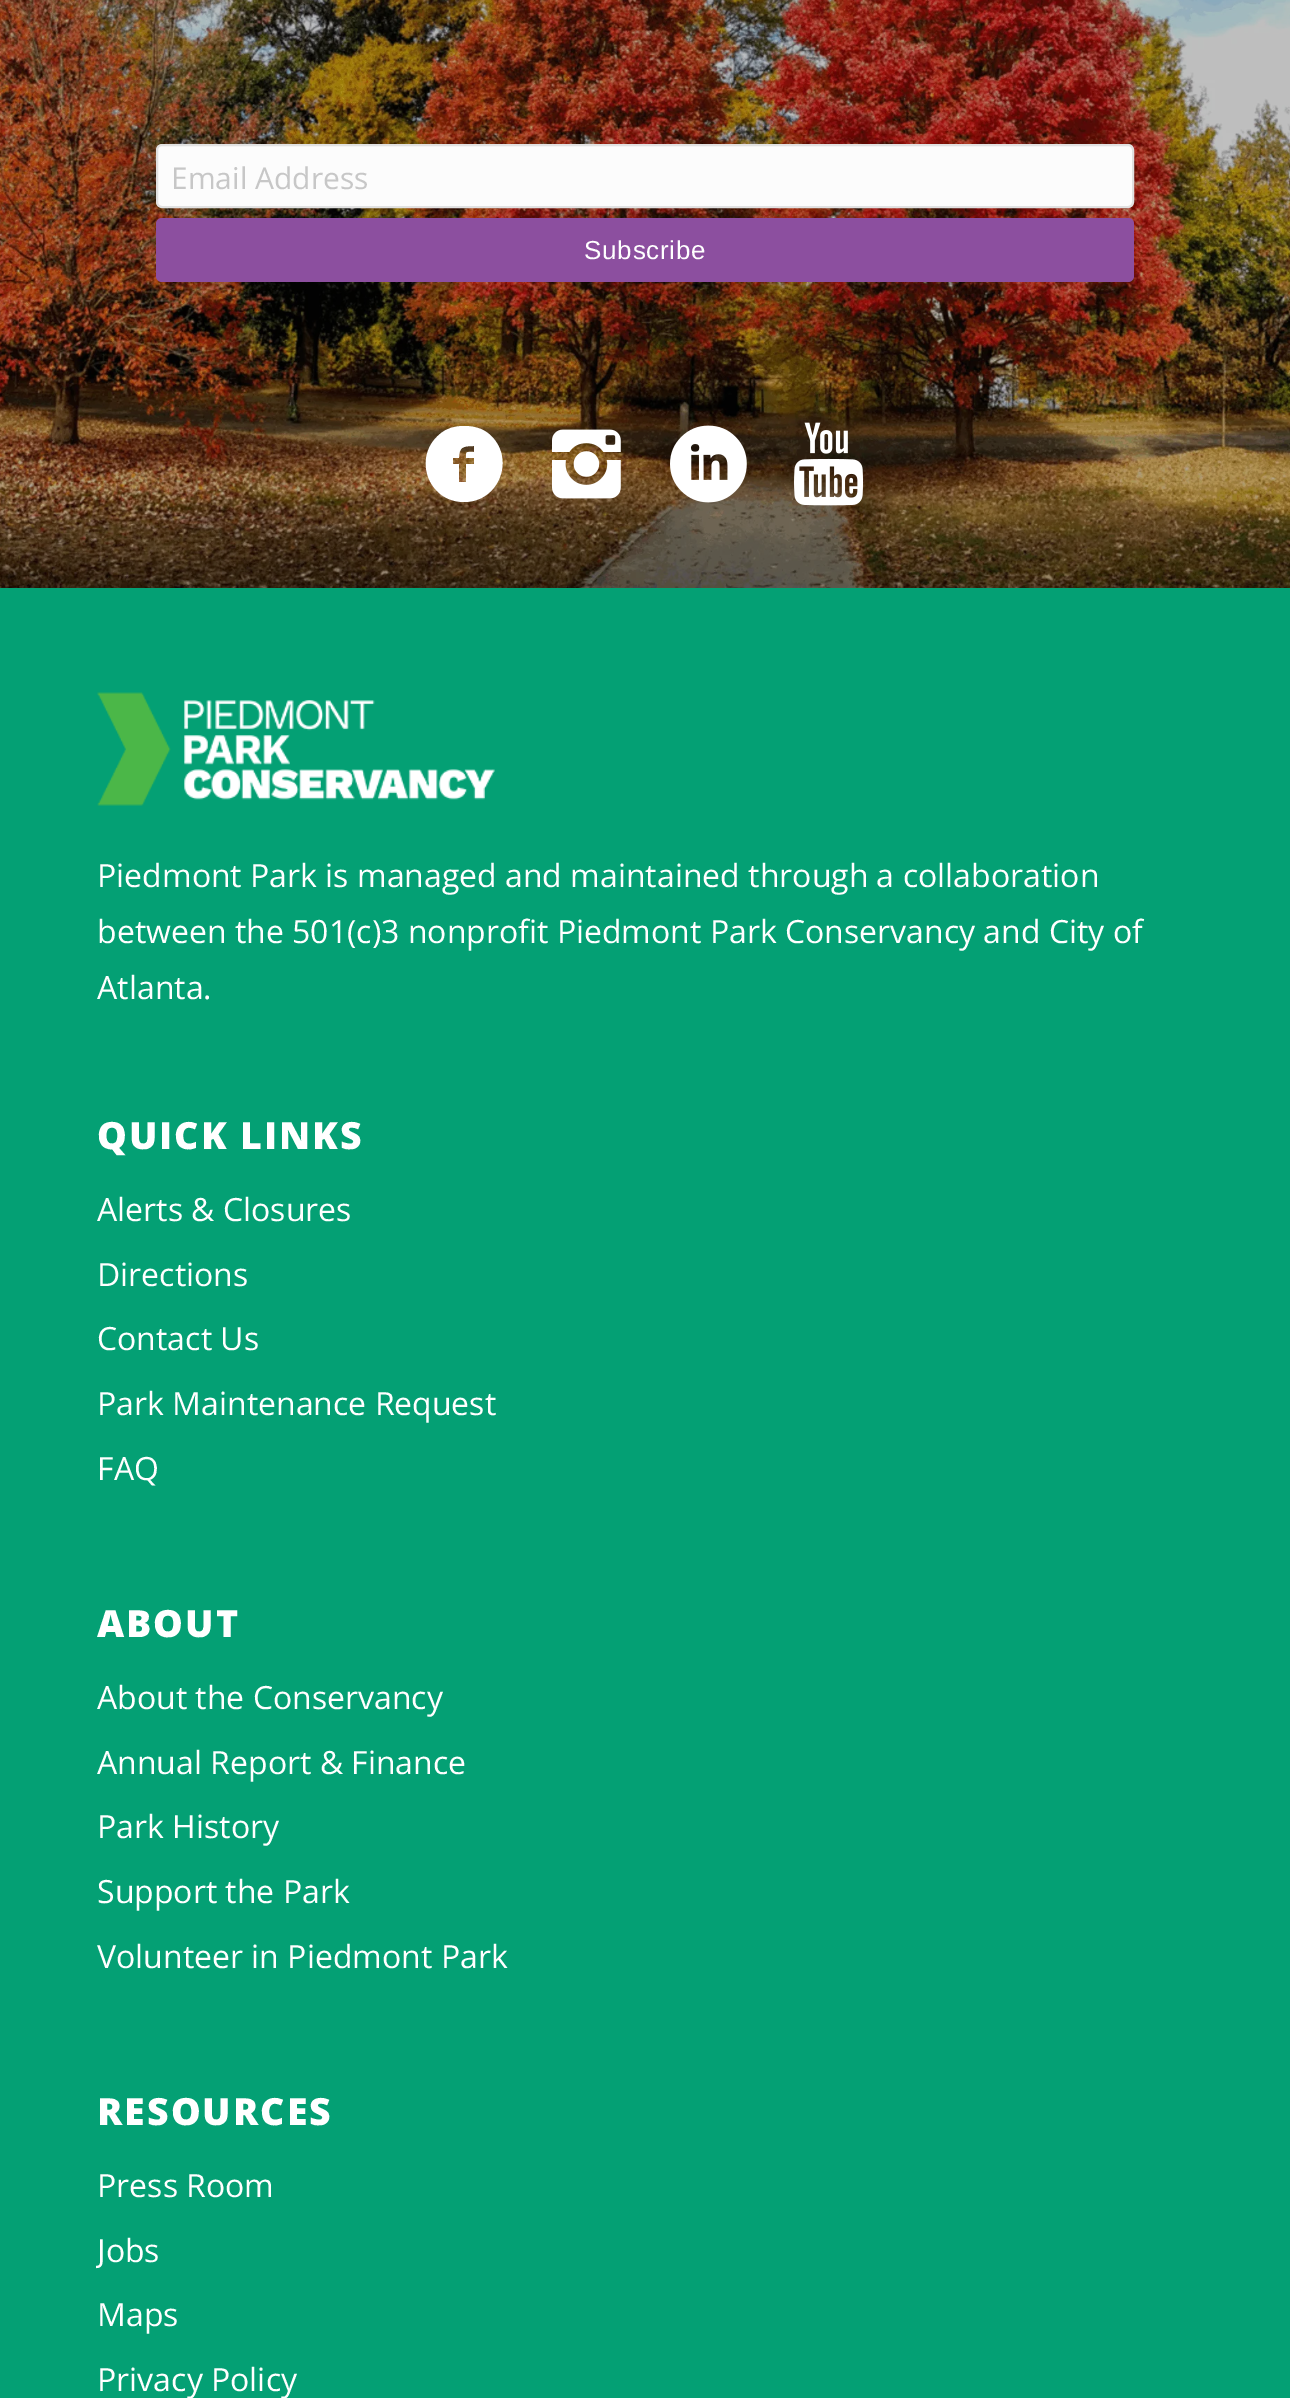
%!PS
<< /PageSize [1290 2398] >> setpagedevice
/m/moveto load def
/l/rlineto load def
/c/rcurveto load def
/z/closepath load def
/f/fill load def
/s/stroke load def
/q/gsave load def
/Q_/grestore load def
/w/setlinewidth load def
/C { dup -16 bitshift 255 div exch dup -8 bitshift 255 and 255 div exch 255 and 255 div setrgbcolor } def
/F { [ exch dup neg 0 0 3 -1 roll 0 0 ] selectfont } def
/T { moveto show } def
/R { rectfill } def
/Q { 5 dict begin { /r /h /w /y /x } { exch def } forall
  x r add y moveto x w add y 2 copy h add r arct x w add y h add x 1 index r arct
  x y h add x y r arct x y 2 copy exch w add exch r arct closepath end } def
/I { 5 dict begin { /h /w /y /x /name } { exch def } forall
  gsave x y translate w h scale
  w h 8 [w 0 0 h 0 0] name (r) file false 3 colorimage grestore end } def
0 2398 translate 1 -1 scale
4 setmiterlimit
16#FFFFFF C
0 0 1290 2398 R
(1.rgb) 0 0 1290 588 I
16#FCFCFC C
157 145 976 62 5 Q q f Q_
16#E1E1E1 C
2 w
s
/OpenSans-Regular 30 F
16#C7C7C7 C
(Email Address) 171 189 T
16#8C4F9F C
156 218 978 64 6 Q f
/LiberationSans-Regular 26 F
16#FFFFFF C
584 259 m .75 0 (Subscribe) ashow
464 426 m 9 0 18 2 25 8 c 27 23 11 68 -25 68 c -36 0 -52 -45 -24 -68 c 7 -6 15 -8 24 -8 c z 474 452 m 0 -6 l -11 0 -15 1 -15 12 c -6 0 l 0 6 l 6 0 l 0 18 l 7 0 l 0 -18 l 8 0 l 0 -6 l -8 0 l 0 -7 0 -6 8 -6 c z f
(2.rgb) 552 429 69 70 I
(3.rgb) 670 425 77 78 I
(4.rgb) 794 422 70 84 I
16#04A074 C
0 588 1290 1810 R
(5.rgb) 97 692 398 114 I
/OpenSans-Regular 32 F
16#FFFFFF C
(Piedmont Park is managed and maintained through a collaboration) 97 887 T
(between the 501\(c\)3 nonprofit Piedmont Park Conservancy and City of) 97 943 T
(Atlanta.) 97 999 T
/OpenSans-ExtraBold 37.5 F
97 1149 m 2 0 (QUICK LINKS) ashow
/OpenSans-Regular 32 F
(Alerts & Closures) 97 1221 T
(Directions) 97 1286 T
(Contact Us) 97 1350 T
(Park Maintenance Request) 97 1415 T
(FAQ) 97 1480 T
/OpenSans-ExtraBold 37.5 F
97 1637 m 2 0 (ABOUT) ashow
/OpenSans-Regular 32 F
(About the Conservancy) 97 1709 T
(Annual Report & Finance) 97 1774 T
(Park History) 97 1838 T
(Support the Park) 97 1903 T
(Volunteer in Piedmont Park) 97 1968 T
/OpenSans-ExtraBold 37.5 F
97 2125 m 2 0 (RESOURCES) ashow
/OpenSans-Regular 32 F
(Press Room) 97 2197 T
q
96 2050 1098 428 rectclip
(Jobs) 97 2262 T
Q_
(Maps) 97 2326 T
(Privacy Policy) 97 2391 T
showpage
